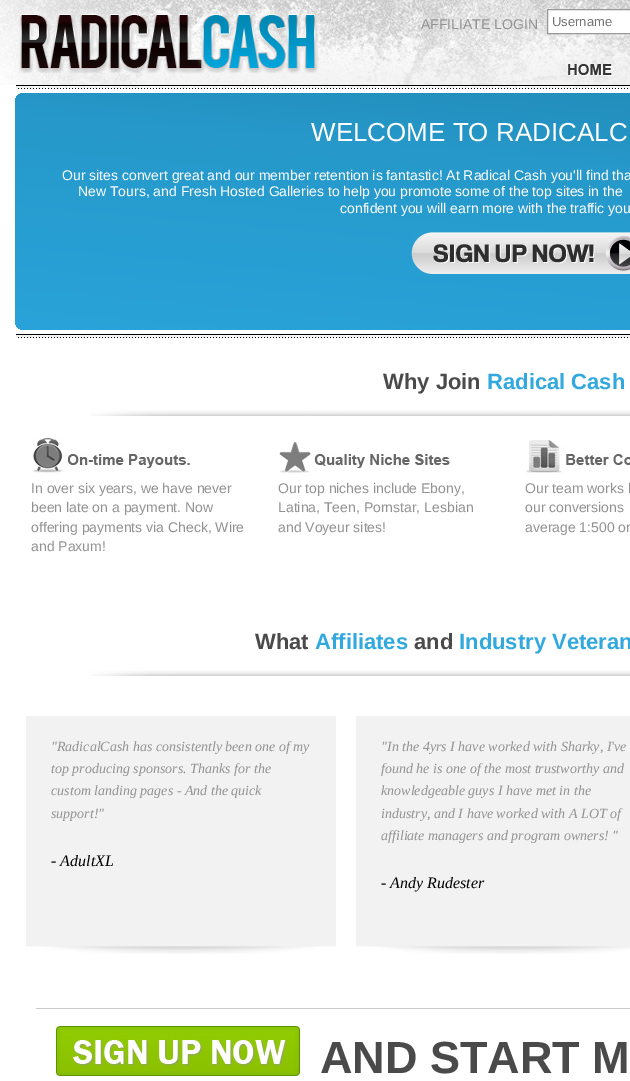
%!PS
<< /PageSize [630 1081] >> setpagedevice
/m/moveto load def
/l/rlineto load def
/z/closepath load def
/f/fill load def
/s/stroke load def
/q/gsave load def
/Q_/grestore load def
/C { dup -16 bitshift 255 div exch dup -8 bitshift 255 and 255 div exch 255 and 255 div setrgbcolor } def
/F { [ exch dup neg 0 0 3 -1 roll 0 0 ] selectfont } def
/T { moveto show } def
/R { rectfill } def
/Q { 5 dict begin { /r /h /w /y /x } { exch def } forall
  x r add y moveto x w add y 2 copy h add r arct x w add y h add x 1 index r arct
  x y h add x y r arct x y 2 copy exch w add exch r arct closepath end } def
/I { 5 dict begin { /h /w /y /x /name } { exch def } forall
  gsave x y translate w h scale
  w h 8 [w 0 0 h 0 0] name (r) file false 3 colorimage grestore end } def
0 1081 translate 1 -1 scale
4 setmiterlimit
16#FFFFFF C
0 0 630 1081 R
(1.rgb) 0 0 630 85 I
(2.rgb) 19 9 301 65 I
/LiberationSans-Regular 14 F
16#939292 C
(AFFILIATE LOGIN) 421 29 T
16#FFFFFF C
547.5 9.5 m 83 0 l 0 24 l -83 0 l z q f Q_
16#999999 C
s
/LiberationSans-Regular 13 F
16#757575 C
(Username) 552 26 T
(3.rgb) 568 64 45 12 I
(4.rgb) 16 85 614 4 I
q 15 93 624 237 9 Q clip newpath
<< /ShadingType 2 /ColorSpace /DeviceRGB /Coords [525 51 497 372] /Extend [true true] /Function << /FunctionType 3 /Domain [0 1] /Functions [<< /FunctionType 2 /Domain [0 1] /C0 [.129 .537 .714] /C1 [.149 .6 .792] /N 1 >> << /FunctionType 2 /Domain [0 1] /C0 [.149 .6 .792] /C1 [.161 .639 .851] /N 1 >>] /Bounds [.35] /Encode [0 1 0 1] >> >> shfill Q_
/LiberationSans-Regular 26 F
16#FFFFFF C
(WELCOME TO RADICALC) 311 141 T
/LiberationSans-Regular 14 F
(Our sites convert great and our member retention is fantastic! At Radical Cash you'll find tha) 62 180 T
(New Tours, and Fresh Hosted Galleries to help you promote some of the top sites in the) 78 196 T
(confident you will earn more with the traffic you) 340 213 T
(5.rgb) 411 232 219 42 I
(4.rgb) 16 334 614 4 I
/LiberationSans-Bold 22 F
16#4A4A4A C
(Why Join) 383 389 T
16#32A9DE C
(Radical Cash) 487 389 T
(6.rgb) 90 410 540 6 I
(7.rgb) 32 437 158 38 I
/LiberationSans-Regular 14 F
16#939292 C
(In over six years, we have never) 31 493 T
(been late on a payment. Now) 31 512 T
(offering payments via Check, Wire) 31 532 T
(and Paxum!) 31 551 T
(8.rgb) 279 439 172 36 I
(Our top niches include Ebony,) 278 493 T
(Latina, Teen, Pornstar, Lesbian) 278 512 T
(and Voyeur sites!) 278 532 T
(9.rgb) 526 440 104 33 I
(Our team works h) 525 493 T
(our conversions) 525 512 T
(average 1:500 or) 525 532 T
/LiberationSans-Bold 22 F
16#4A4A4A C
(What) 255 649 T
16#32A9DE C
(Affiliates) 315 649 T
16#4A4A4A C
(and) 414 649 T
16#32A9DE C
(Industry Veteran) 459 649 T
(6.rgb) 90 670 540 6 I
16#F3F2F2 C
26 716 310 230 R
/LiberationSerif-Italic 14 F
16#939292 C
("RadicalCash has consistently been one of my) 51 751 T
(top producing sponsors. Thanks for the) 51 773 T
(custom landing pages - And the quick) 51 795 T
(support!") 51 818 T
/LiberationSerif-Italic 16 F
16#000000 C
(- AdultXL) 51 866 T
(10.rgb) 26 946 309 8 I
16#F3F2F2 C
356 716 274 230 R
/LiberationSerif-Italic 14 F
16#939292 C
("In the 4yrs I have worked with Sharky, I've) 381 751 T
(found he is one of the most trustworthy and) 381 773 T
(knowledgeable guys I have met in the) 381 795 T
(industry, and I have worked with A LOT of) 381 818 T
(affiliate managers and program owners! ") 381 840 T
/LiberationSerif-Italic 16 F
16#000000 C
(- Andy Rudester) 381 888 T
(11.rgb) 356 946 274 8 I
16#CCCCCC C
36 1008 594 1 R
(12.rgb) 56 1026 244 50 I
/LiberationSans-Bold 45 F
16#4A4A4A C
(AND START M) 320 1073 T
showpage
